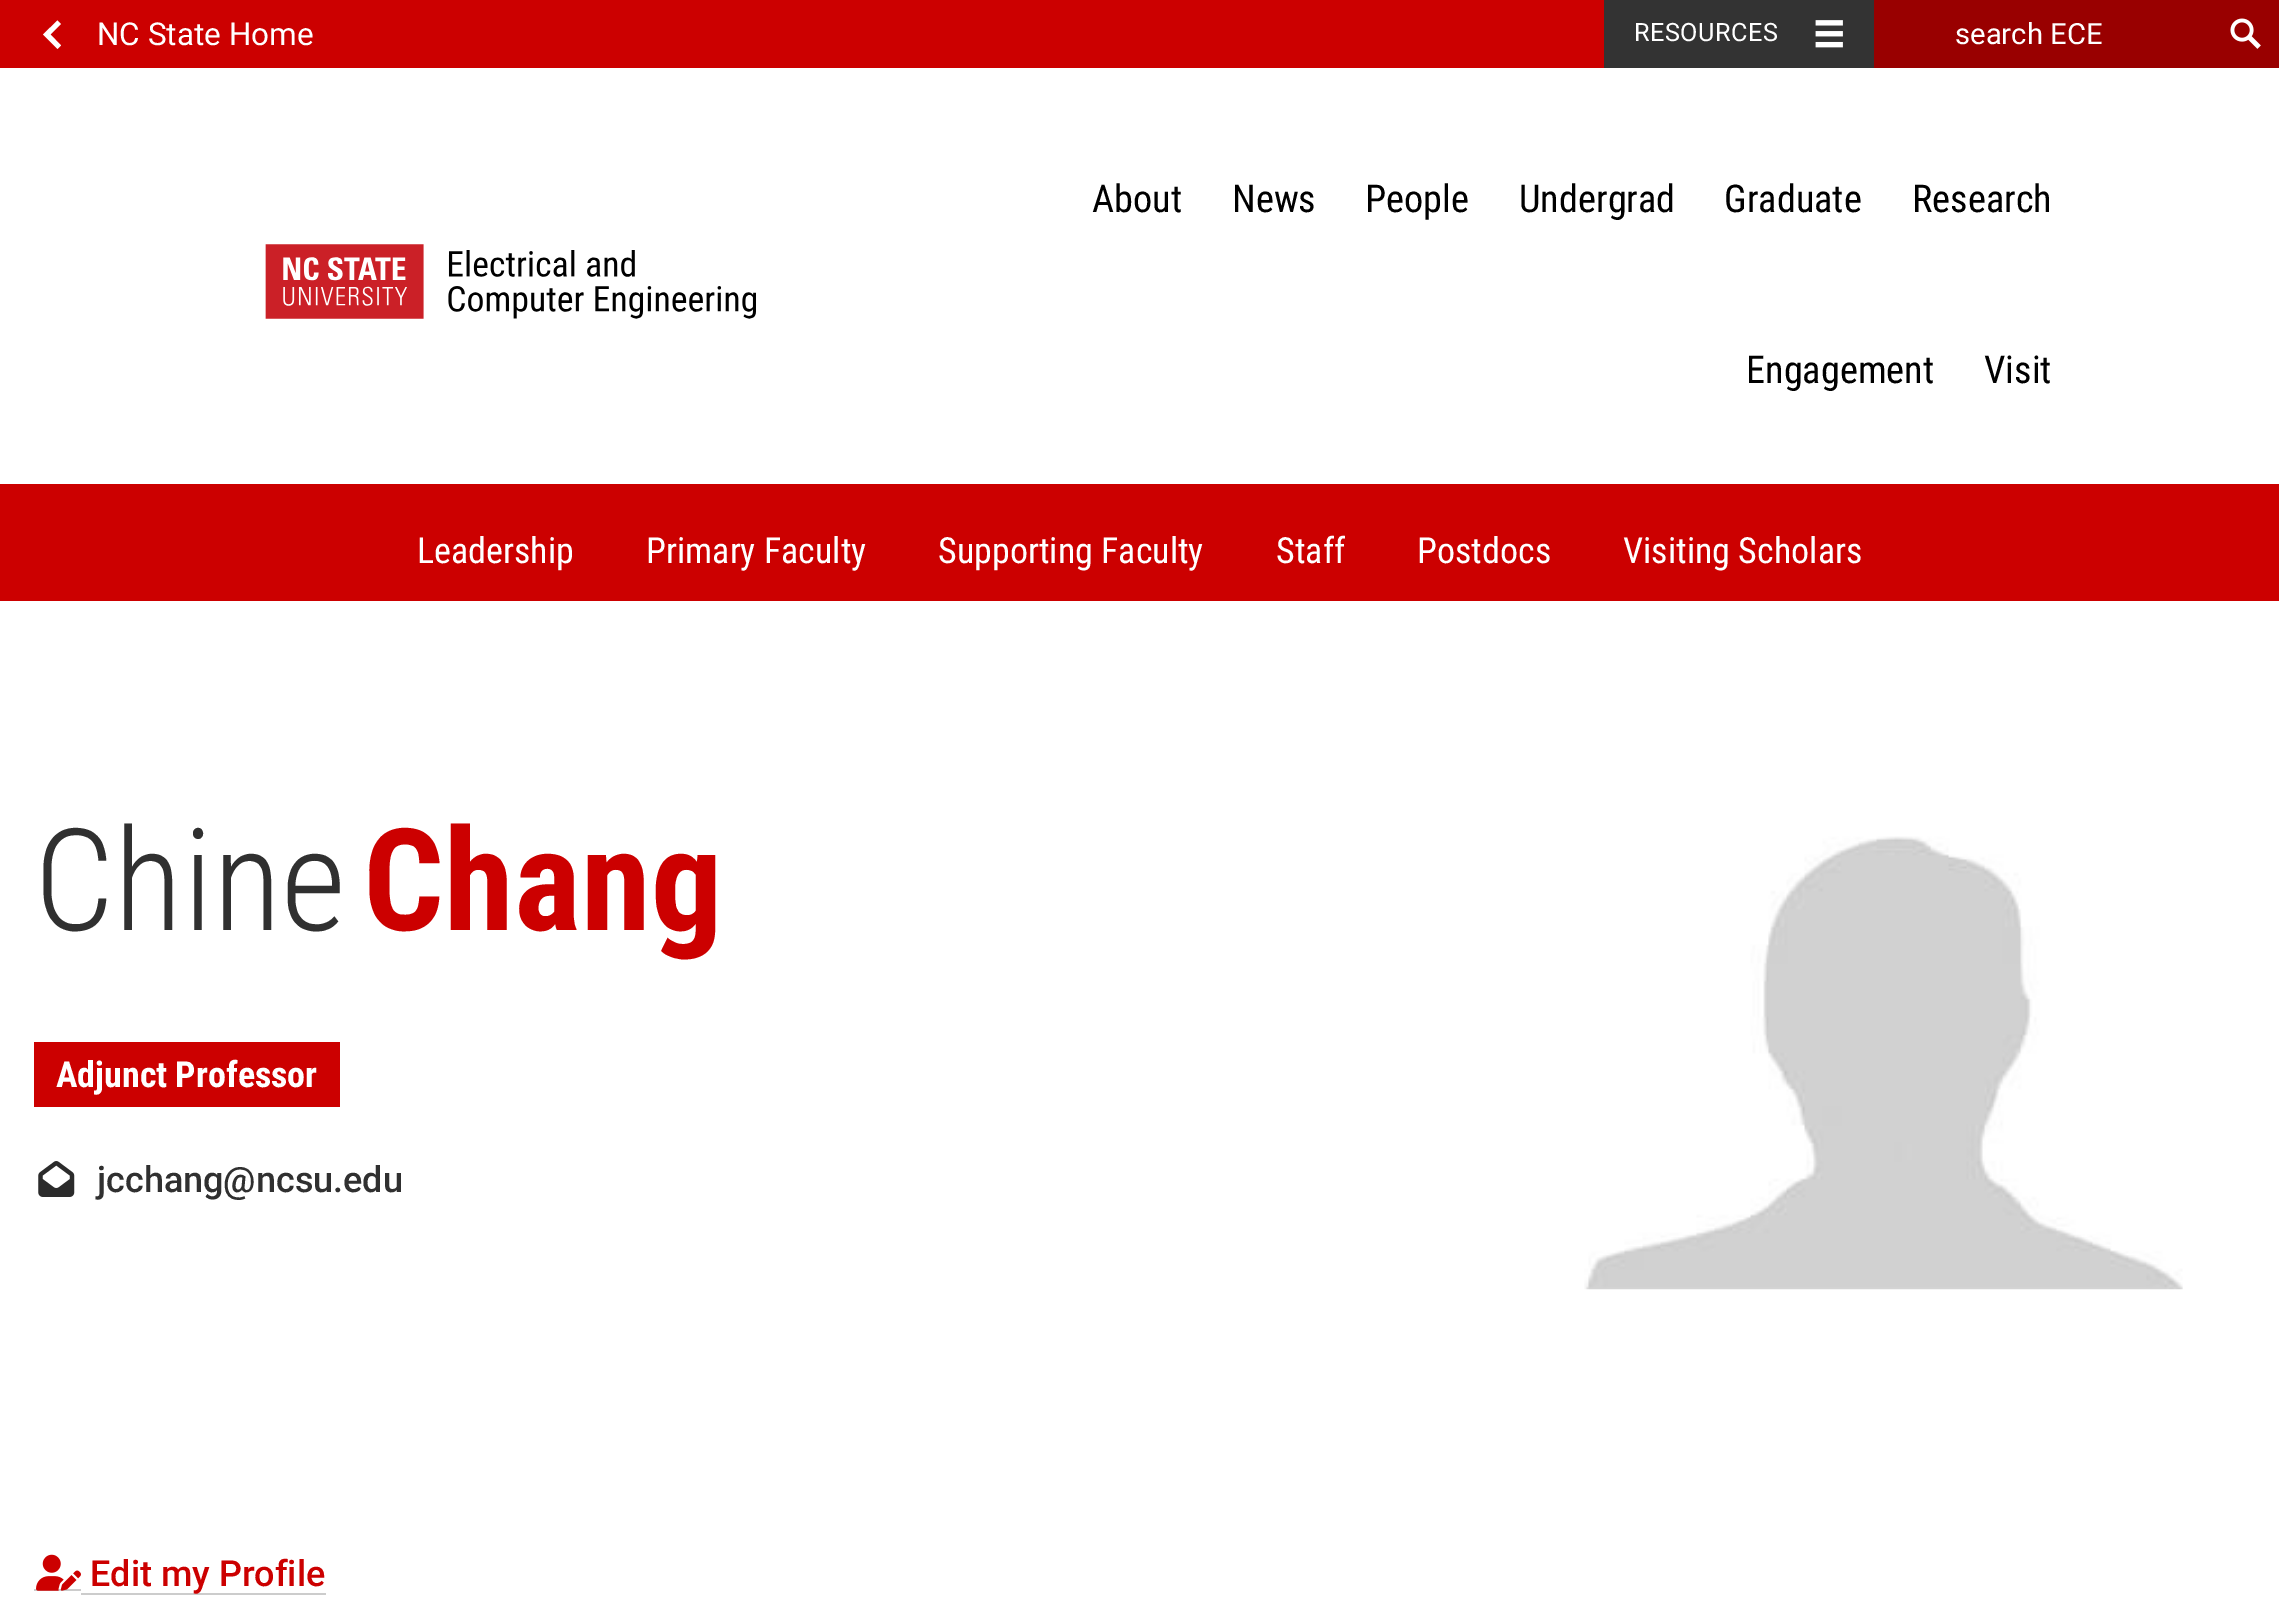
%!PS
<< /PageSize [2279 1606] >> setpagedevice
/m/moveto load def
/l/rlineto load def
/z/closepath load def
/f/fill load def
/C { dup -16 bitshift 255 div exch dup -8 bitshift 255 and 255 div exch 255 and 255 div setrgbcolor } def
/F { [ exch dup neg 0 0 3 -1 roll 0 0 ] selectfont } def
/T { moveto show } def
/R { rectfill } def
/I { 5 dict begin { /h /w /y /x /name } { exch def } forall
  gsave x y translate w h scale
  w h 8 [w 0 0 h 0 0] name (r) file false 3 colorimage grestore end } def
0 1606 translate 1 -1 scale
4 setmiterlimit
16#FFFFFF C
0 0 2279 1606 R
16#CC0000 C
0 0 1604 68 R
16#FFFFFF C
46.5 38 m 11 11 l 3.5 -3.5 l -10.5 -11 l 10.5 -10.5 l -3.5 -3.5 l -14.5 14 l z f
/Roboto-Regular 31.5 F
(NC State Home) 97 45 T
16#333333 C
1604 0 270 68 R
(1.rgb) 1815 20 28 28 I
/Roboto-Regular 25.25 F
16#FFFFFF C
1634 41 m .5 0 (RESOURCES) ashow
16#990000 C
1874 0 405 68 R
/Roboto-Regular 29.25 F
16#FFFFFF C
(search ECE) 1955 44 T
(2.rgb) 2230 18 31 31 I
(3.rgb) 265 244 491 75 I
/RobotoCondensed-Regular 38.25 F
16#000000 C
(About) 1092 212 T
(News) 1232 212 T
(People) 1365 212 T
(Undergrad) 1519 212 T
(Graduate) 1724 212 T
(Research) 1912 212 T
(Engagement) 1746 383 T
(Visit) 1984 383 T
16#CC0000 C
0 484 2279 117 R
/RobotoCondensed-Regular 36 F
16#FFFFFF C
(Leadership) 417 563 T
(Primary Faculty) 646 563 T
(Supporting Faculty) 938 563 T
(Staff) 1276 563 T
(Postdocs) 1417 563 T
(Visiting Scholars) 1623 563 T
/RobotoCondensed-Light 142 F
16#303030 C
(Chine) 34 930 T
/RobotoCondensed-Bold 142 F
16#CC0000 C
(Chang) 363 930 T
34 1042 306 65 R
/RobotoCondensed-Bold 36 F
16#FFFFFF C
(Adjunct Professor) 56 1087 T
(4.rgb) 38 1161 37 36 I
/Roboto-Medium 36 F
16#303030 C
(jcchang@ncsu.edu) 97 1192 T
(5.rgb) 1584 836 599 454 I
16#CCCCCC C
34 1589 47 2 R
81 1593 245 2 R
(6.rgb) 36 1554 45 37 I
16#CC0000 C
(Edit my Profile) 90 1586 T
showpage
